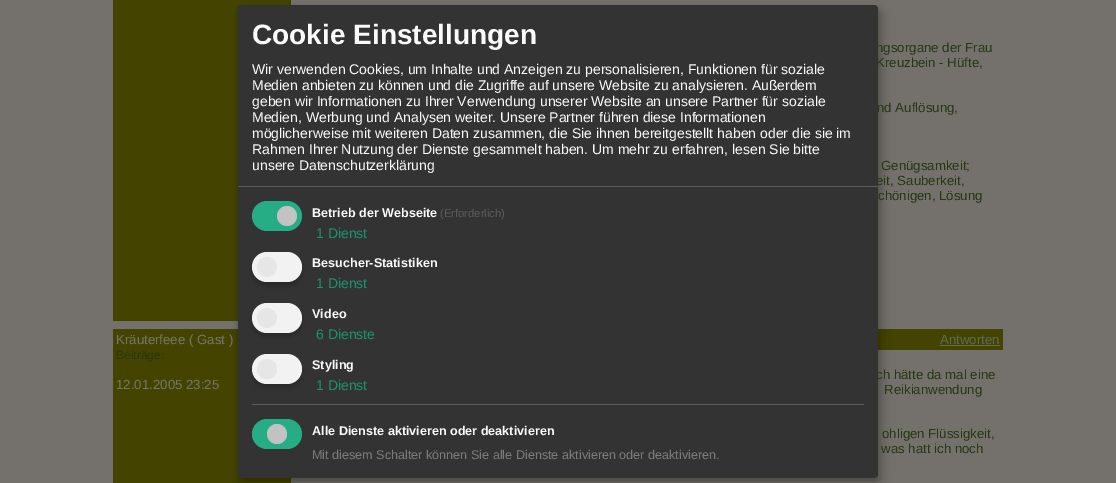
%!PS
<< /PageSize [1116 483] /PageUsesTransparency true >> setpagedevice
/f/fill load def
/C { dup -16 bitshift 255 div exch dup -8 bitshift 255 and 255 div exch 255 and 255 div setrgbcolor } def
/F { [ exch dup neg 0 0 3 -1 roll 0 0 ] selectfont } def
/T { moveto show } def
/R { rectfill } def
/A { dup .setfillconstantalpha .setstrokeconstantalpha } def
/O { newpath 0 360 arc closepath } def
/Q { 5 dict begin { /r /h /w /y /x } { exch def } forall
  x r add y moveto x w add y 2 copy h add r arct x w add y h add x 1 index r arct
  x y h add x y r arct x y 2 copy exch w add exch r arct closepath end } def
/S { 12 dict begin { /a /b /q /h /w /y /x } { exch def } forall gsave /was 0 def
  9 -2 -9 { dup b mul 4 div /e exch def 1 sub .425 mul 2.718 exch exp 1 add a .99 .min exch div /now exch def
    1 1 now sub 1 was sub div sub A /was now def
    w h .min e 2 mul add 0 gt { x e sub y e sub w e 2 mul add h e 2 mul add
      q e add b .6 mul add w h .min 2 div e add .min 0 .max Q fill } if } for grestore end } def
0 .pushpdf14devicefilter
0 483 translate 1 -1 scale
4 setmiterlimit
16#74716C C
0 0 1116 483 R
16#444400 C
113 0 178 321 R
113 329 178 154 R
878 329 125 21 R
16#000000 C
243 10 640 473 4 5 .19 S
238 9 640 473 4 3 .2 S
/LiberationSans-Regular 13.25 F
16#243712 C
(ngsorgane der Frau) 876 52 T
(Kreuzbein - Hüfte,) 876 67 T
(eit, Sauberkeit,) 876 185 T
(ch hätte da mal eine) 876 379 T
16#333333 C
238 5 640 473 4 Q f
16#5C5C5C C
238 186 640 1 R
/LiberationSans-Bold 28 F
16#FAFAFA C
(Cookie Einstellungen) 252 44 T
/LiberationSans-Regular 14 F
(Wir verwenden Cookies, um Inhalte und Anzeigen zu personalisieren, Funktionen für soziale) 252 74 T
(Medien anbieten zu können und die Zugriffe auf unsere Website zu analysieren. Außerdem) 252 90 T
(geben wir Informationen zu Ihrer Verwendung unserer Website an unsere Partner für soziale) 252 106 T
(Medien, Werbung und Analysen weiter. Unsere Partner führen diese Informationen) 252 122 T
(möglicherweise mit weiteren Daten zusammen, die Sie ihnen bereitgestellt haben oder die sie im) 252 138 T
(Rahmen Ihrer Nutzung der Dienste gesammelt haben. Um mehr zu erfahren, lesen Sie bitte) 252 154 T
(unsere Datenschutzerklärung) 252 170 T
16#27AD85 C
252 201 50 30 15 Q f
16#C2C2C2 C
287 216 10 O f
/LiberationSans-Bold 12.6 F
16#FAFAFA C
(Betrieb der Webseite) 312 217 T
/LiberationSans-Regular 11.25 F
16#5C5C5C C
(\(Erforderlich\)) 440 217 T
/LiberationSans-Regular 14 F
16#1A936F C
(1 Dienst) 316 238 T
16#000000 C
252 256 50 30 15 3 .2 S
16#F2F2F2 C
252 252 50 30 15 Q f
16#E6E6E6 C
267 267 10 O f
/LiberationSans-Bold 12.6 F
16#FAFAFA C
(Besucher-Statistiken) 312 267 T
/LiberationSans-Regular 14 F
16#1A936F C
(1 Dienst) 316 288 T
16#000000 C
252 307 50 30 15 3 .2 S
16#F2F2F2 C
252 303 50 30 15 Q f
16#E6E6E6 C
267 318 10 O f
/LiberationSans-Bold 12.6 F
16#FAFAFA C
(Video) 312 318 T
/LiberationSans-Regular 14 F
16#1A936F C
(6 Dienste) 316 339 T
16#000000 C
252 358 50 30 15 3 .2 S
16#F2F2F2 C
252 354 50 30 15 Q f
16#E6E6E6 C
267 369 10 O f
/LiberationSans-Bold 12.6 F
16#FAFAFA C
(Styling) 312 369 T
/LiberationSans-Regular 14 F
16#1A936F C
(1 Dienst) 316 390 T
16#5C5C5C C
252 404 612 1 R
16#27AD85 C
252 419 50 30 15 Q f
16#C2C2C2 C
277 434 10 O f
/LiberationSans-Bold 12.6 F
16#FAFAFA C
(Alle Dienste aktivieren oder deaktivieren) 312 435 T
/LiberationSans-Regular 12.6 F
16#7C7C7C C
(Mit diesem Schalter können Sie alle Dienste aktivieren oder deaktivieren.) 312 459 T
/LiberationSans-Regular 13.25 F
16#243712 C
(nd Auflösung,) 877 112 T
(Genügsamkeit;) 881 170 T
(chönigen, Lösung) 878 200 T
16#757569 C
(Kräuterfeee \( Gast \)) 116 344 T
/LiberationSans-Regular 12 F
16#243712 C
(Beiträge:) 116 359 T
/LiberationSans-Regular 13.25 F
16#757569 C
(12.01.2005 23:25) 116 389 T
16#606A57 C
(Antworten) 940 344 T
940 345 60 1 R
16#243712 C
(Reikianwendung) 884 394 T
(ohligen Flüssigkeit,) 882 438 T
(was hatt ich noch) 881 453 T
.poppdf14devicefilter showpage
